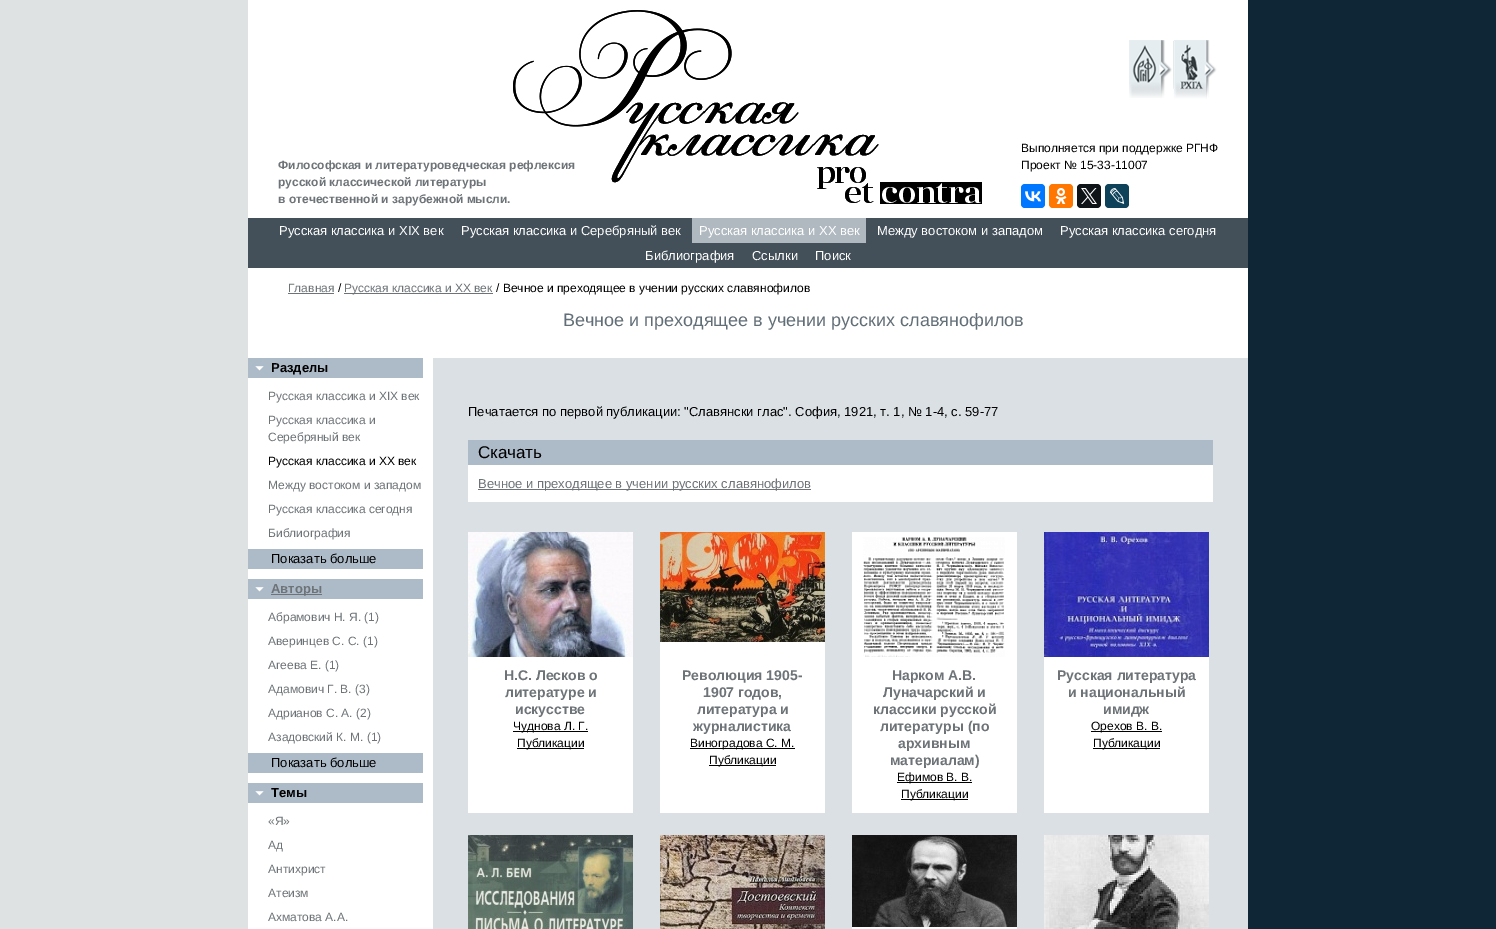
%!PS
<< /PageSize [1496 929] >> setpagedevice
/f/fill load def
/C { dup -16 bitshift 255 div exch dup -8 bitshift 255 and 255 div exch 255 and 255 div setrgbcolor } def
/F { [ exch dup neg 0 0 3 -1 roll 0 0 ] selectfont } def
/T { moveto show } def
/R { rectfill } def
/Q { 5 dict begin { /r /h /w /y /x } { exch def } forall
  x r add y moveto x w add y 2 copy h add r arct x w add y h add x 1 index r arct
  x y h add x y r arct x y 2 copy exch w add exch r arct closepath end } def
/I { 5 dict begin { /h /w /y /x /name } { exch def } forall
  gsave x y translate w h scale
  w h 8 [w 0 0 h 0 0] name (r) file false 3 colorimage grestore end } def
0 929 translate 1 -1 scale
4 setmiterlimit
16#FFFFFF C
0 0 1496 929 R
(1.rgb) 0 0 1496 929 I
248 0 1000 929 R
(2.rgb) 513 10 469 194 I
(3.rgb) 1129 40 43 58 I
(4.rgb) 1173 40 44 59 I
/LiberationSans-Bold 12 F
16#6D7377 C
(Философская и литературоведческая рефлексия) 278 169 T
(русской классической литературы) 278 186 T
(в отечественной и зарубежной мысли.) 278 203 T
/LiberationSans-Regular 12 F
16#000000 C
(Выполняется при поддержке РГНФ) 1021 152 T
(Проект № 15-33-11007) 1021 169 T
16#0077FF C
1021 184 24 24 4 Q f
(5.rgb) 1025 191 16 11 I
16#FF7700 C
1049 184 24 24 4 Q f
(6.rgb) 1055 188 12 16 I
16#0F1419 C
1077 184 24 24 4 Q f
(7.rgb) 1081 188 16 16 I
16#0D425A C
1105 184 24 24 4 Q f
(8.rgb) 1110 188 15 16 I
16#435059 C
248 218 1000 50 R
/LiberationSans-Regular 13 F
16#FFFFFF C
(Русская классика и XIX век) 279 235 T
(Русская классика и Серебряный век) 461 235 T
16#AFB9BF C
692 218 174 25 R
16#FFFFFF C
(Русская классика и XX век) 699 235 T
(Между востоком и западом) 877 235 T
(Русская классика сегодня) 1060 235 T
(Библиография) 645 260 T
(Ссылки) 752 260 T
(Поиск) 815 260 T
/LiberationSans-Regular 12 F
16#6D7377 C
(Главная) 288 292 T
288 293 46 1 R
16#000000 C
(/) 338 292 T
16#6D7377 C
344 293 149 1 R
(Русская классика и XX век) 344 292 T
16#000000 C
(/ Вечное и преходящее в учении русских славянофилов) 496 292 T
/LiberationSans-Regular 18 F
16#636F77 C
(Вечное и преходящее в учении русских славянофилов) 563 326 T
16#ADBBC8 C
248 358 175 20 R
(9.rgb) 255 366 9 5 I
/LiberationSans-Bold 13 F
16#000000 C
(Разделы) 271 372 T
/LiberationSans-Regular 12 F
16#6D7377 C
(Русская классика и XIX век) 268 400 T
(Русская классика и) 268 424 T
(Серебряный век) 268 441 T
16#000000 C
(Русская классика и XX век) 268 465 T
16#6D7377 C
(Между востоком и западом) 268 489 T
(Русская классика сегодня) 268 513 T
(Библиография) 268 537 T
16#ADBBC8 C
248 549 175 20 R
/LiberationSans-Regular 13 F
16#000000 C
(Показать больше) 271 563 T
16#ADBBC8 C
248 579 175 20 R
(9.rgb) 255 587 9 5 I
16#6D7377 C
271 594 51 1 R
/LiberationSans-Bold 13 F
(Авторы) 271 593 T
/LiberationSans-Regular 12 F
(Абрамович Н. Я. \(1\)) 268 621 T
(Аверинцев С. С. \(1\)) 268 645 T
(Агеева Е. \(1\)) 268 669 T
(Адамович Г. В. \(3\)) 268 693 T
(Адрианов С. А. \(2\)) 268 717 T
(Азадовский К. М. \(1\)) 268 741 T
16#ADBBC8 C
248 753 175 20 R
/LiberationSans-Regular 13 F
16#000000 C
(Показать больше) 271 767 T
16#ADBBC8 C
248 783 175 20 R
(9.rgb) 255 791 9 5 I
/LiberationSans-Bold 13 F
16#000000 C
(Темы) 271 797 T
/LiberationSans-Regular 12 F
16#6D7377 C
(«Я») 268 825 T
(Ад) 268 849 T
(Антихрист) 268 873 T
(Атеизм) 268 897 T
(Ахматова А.А.) 268 921 T
16#DBE0E4 C
433 358 815 571 R
/LiberationSans-Regular 13 F
16#000000 C
(Печатается по первой публикации: "Славянски глас". София, 1921, т. 1, № 1-4, с. 59-77) 468 416 T
16#ADBBC8 C
468 440 745 25 R
/LiberationSans-Regular 17 F
16#000000 C
(Скачать) 478 458 T
16#FFFFFF C
468 465 745 37 R
16#6D7377 C
478 489 333 1 R
/LiberationSans-Regular 13 F
(Вечное и преходящее в учении русских славянофилов) 478 488 T
(10.rgb) 468 532 165 125 I
16#FFFFFF C
468 657 165 156 R
/LiberationSans-Bold 14 F
16#6D7377 C
(Н.С. Лесков о) 504 680 T
(литературе и) 505 697 T
(искусстве) 515 714 T
16#000000 C
513 731 75 1 R
/LiberationSans-Regular 12 F
(Чуднова Л. Г.) 513 730 T
517 748 67 1 R
(Публикации) 517 747 T
(11.rgb) 660 532 165 110 I
16#FFFFFF C
660 642 165 171 R
/LiberationSans-Bold 14 F
16#6D7377 C
(Революция 1905-) 682 680 T
(1907 годов,) 703 697 T
(литература и) 697 714 T
(журналистика) 693 731 T
16#000000 C
690 748 105 1 R
/LiberationSans-Regular 12 F
(Виноградова С. М.) 690 747 T
709 765 67 1 R
(Публикации) 709 764 T
16#FFFFFF C
852 532 165 281 R
(12.rgb) 863 537 142 120 I
/LiberationSans-Bold 14 F
16#6D7377 C
(Нарком А.В.) 892 680 T
(Луначарский и) 883 697 T
(классики русской) 873 714 T
(литературы \(по) 880 731 T
(архивным) 898 748 T
(материалам\)) 890 765 T
16#000000 C
897 782 75 1 R
/LiberationSans-Regular 12 F
(Ефимов В. В.) 897 781 T
901 799 67 1 R
(Публикации) 901 798 T
(13.rgb) 1044 532 165 125 I
16#FFFFFF C
1044 657 165 156 R
/LiberationSans-Bold 14 F
16#6D7377 C
(Русская литература) 1057 680 T
(и национальный) 1068 697 T
(имидж) 1103 714 T
16#000000 C
1091 731 71 1 R
/LiberationSans-Regular 12 F
(Орехов В. В.) 1091 730 T
1093 748 67 1 R
(Публикации) 1093 747 T
(14.rgb) 468 835 165 94 I
(15.rgb) 660 835 165 94 I
16#FFFFFF C
852 927 165 2 R
(16.rgb) 852 835 165 92 I
(17.rgb) 1044 835 165 94 I
showpage
